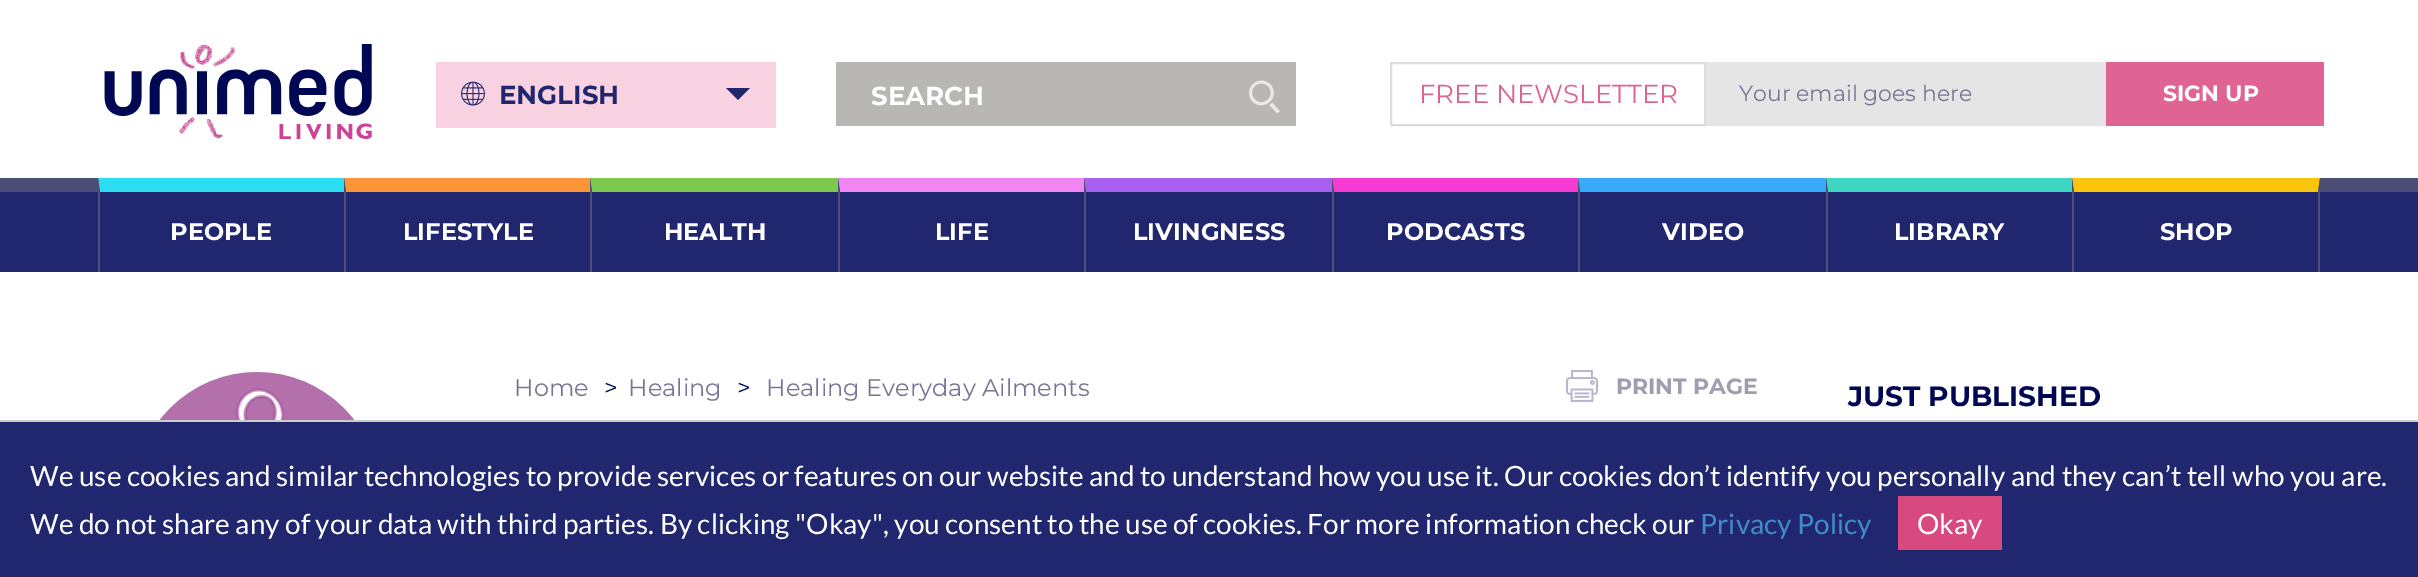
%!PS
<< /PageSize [2418 577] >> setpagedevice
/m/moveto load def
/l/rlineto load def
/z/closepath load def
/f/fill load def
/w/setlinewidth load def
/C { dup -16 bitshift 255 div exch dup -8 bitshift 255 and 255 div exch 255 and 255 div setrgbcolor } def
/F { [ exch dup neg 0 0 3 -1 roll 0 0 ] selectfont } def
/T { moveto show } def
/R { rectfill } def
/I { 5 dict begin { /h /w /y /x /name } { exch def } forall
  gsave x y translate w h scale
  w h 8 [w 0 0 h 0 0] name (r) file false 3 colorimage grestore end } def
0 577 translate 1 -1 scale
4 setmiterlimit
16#FFFFFF C
0 0 2418 577 R
(1.rgb) 104 44 268 96 I
16#F9D2E2 C
436 62 340 66 R
(2.rgb) 461 81 24 25 I
/Montserrat-Bold 26 F
16#20276E C
(ENGLISH) 499 104 T
726 88 m 24 0 l -12 12 l z f
16#B8B7B4 C
836 62 460 64 R
16#FFFFFF C
(SEARCH) 871 105 T
(3.rgb) 1249 80 31 34 I
16#DDDDDD C
2 w
1391 63 314 62 rectstroke
/Montserrat-Regular 26 F
16#DF6493 C
(FREE NEWSLETTER) 1419 103 T
16#E5E5E5 C
1706 62 400 64 R
/Montserrat-Regular 22 F
16#767596 C
(Your email goes here) 1739 101 T
16#DF6493 C
2106 62 218 64 R
/Montserrat-Bold 22 F
16#FFFFFF C
(SIGN UP) 2163 101 T
16#20276E C
0 192 2418 80 R
16#4C4E78 C
0 178 2418 14 R
16#2CDEF2 C
98 178 m 246 0 l 0 14 l -244 0 l z f
16#4D5071 C
98 272 m 0 -94 l 2 14 l 0 80 l z f
/Montserrat-Bold 24 F
16#FFFFFF C
(PEOPLE) 170 240 T
16#FC9438 C
344 178 m 246 0 l 0 14 l -244 0 l z f
16#4D5071 C
344 272 m 0 -94 l 2 14 l 0 80 l z f
16#FFFFFF C
(LIFESTYLE) 403 240 T
16#7DC950 C
590 178 m 248 0 l 0 14 l -246 0 l z f
16#4D5071 C
590 272 m 0 -94 l 2 14 l 0 80 l z f
16#FFFFFF C
(HEALTH) 664 240 T
16#F284F3 C
838 178 m 246 0 l 0 14 l -244 0 l z f
16#4D5071 C
838 272 m 0 -94 l 2 14 l 0 80 l z f
16#FFFFFF C
(LIFE) 935 240 T
16#A860F0 C
1084 178 m 248 0 l 0 14 l -246 0 l z f
16#4D5071 C
1084 272 m 0 -94 l 2 14 l 0 80 l z f
16#FFFFFF C
(LIVINGNESS) 1133 240 T
16#F53BD3 C
1332 178 m 246 0 l 0 14 l -244 0 l z f
16#4D5071 C
1332 272 m 0 -94 l 2 14 l 0 80 l z f
16#FFFFFF C
(PODCASTS) 1386 240 T
16#39AAFA C
1578 178 m 248 0 l 0 14 l -246 0 l z f
16#4D5071 C
1578 272 m 0 -94 l 2 14 l 0 80 l z f
16#FFFFFF C
(VIDEO) 1662 240 T
16#3ED6C2 C
1826 178 m 246 0 l 0 14 l -244 0 l z f
16#4D5071 C
1826 272 m 0 -94 l 2 14 l 0 80 l z f
16#FFFFFF C
(LIBRARY) 1894 240 T
16#FAC30C C
2072 178 m 248 0 l -2 14 l -244 0 l z f
16#4D5071 C
2320 178 m 0 94 l -2 0 l 0 -80 l z f
2072 272 m 0 -94 l 2 14 l 0 80 l z f
16#FFFFFF C
(SHOP) 2160 240 T
(4.rgb) 159 372 196 48 I
/Montserrat-Regular 24 F
16#767596 C
(Home) 514 396 T
16#000853 C
(>) 604 396 T
16#767596 C
(Healing) 628 396 T
16#000853 C
(>) 737 396 T
16#767596 C
(Healing Everyday Ailments) 766 396 T
(5.rgb) 1566 370 32 32 I
/Montserrat-Bold 22 F
16#9F9DAE C
(PRINT PAGE) 1616 394 T
/Montserrat-Bold 28 F
16#000853 C
(JUST PUBLISHED) 1848 406 T
16#20276E C
0 422 2418 155 R
16#CCCCCC C
0 420 2418 2 R
/Lato-Regular 28 F
16#FFFFFF C
30 486 m .2 0 32 (We use cookies and similar technologies to provide services or features on our website and to understand how you use it. Our cookies don’t identify you personally and they can’t tell who you are.) widthshow
(We do not share any of your data with third parties. By clicking "Okay", you consent to the use of cookies. For more information check our) 30 534 T
16#428BCA C
(Privacy Policy) 1700 534 T
16#D7497F C
1898 496 104 54 R
16#FFFFFF C
(Okay) 1917 534 T
showpage
